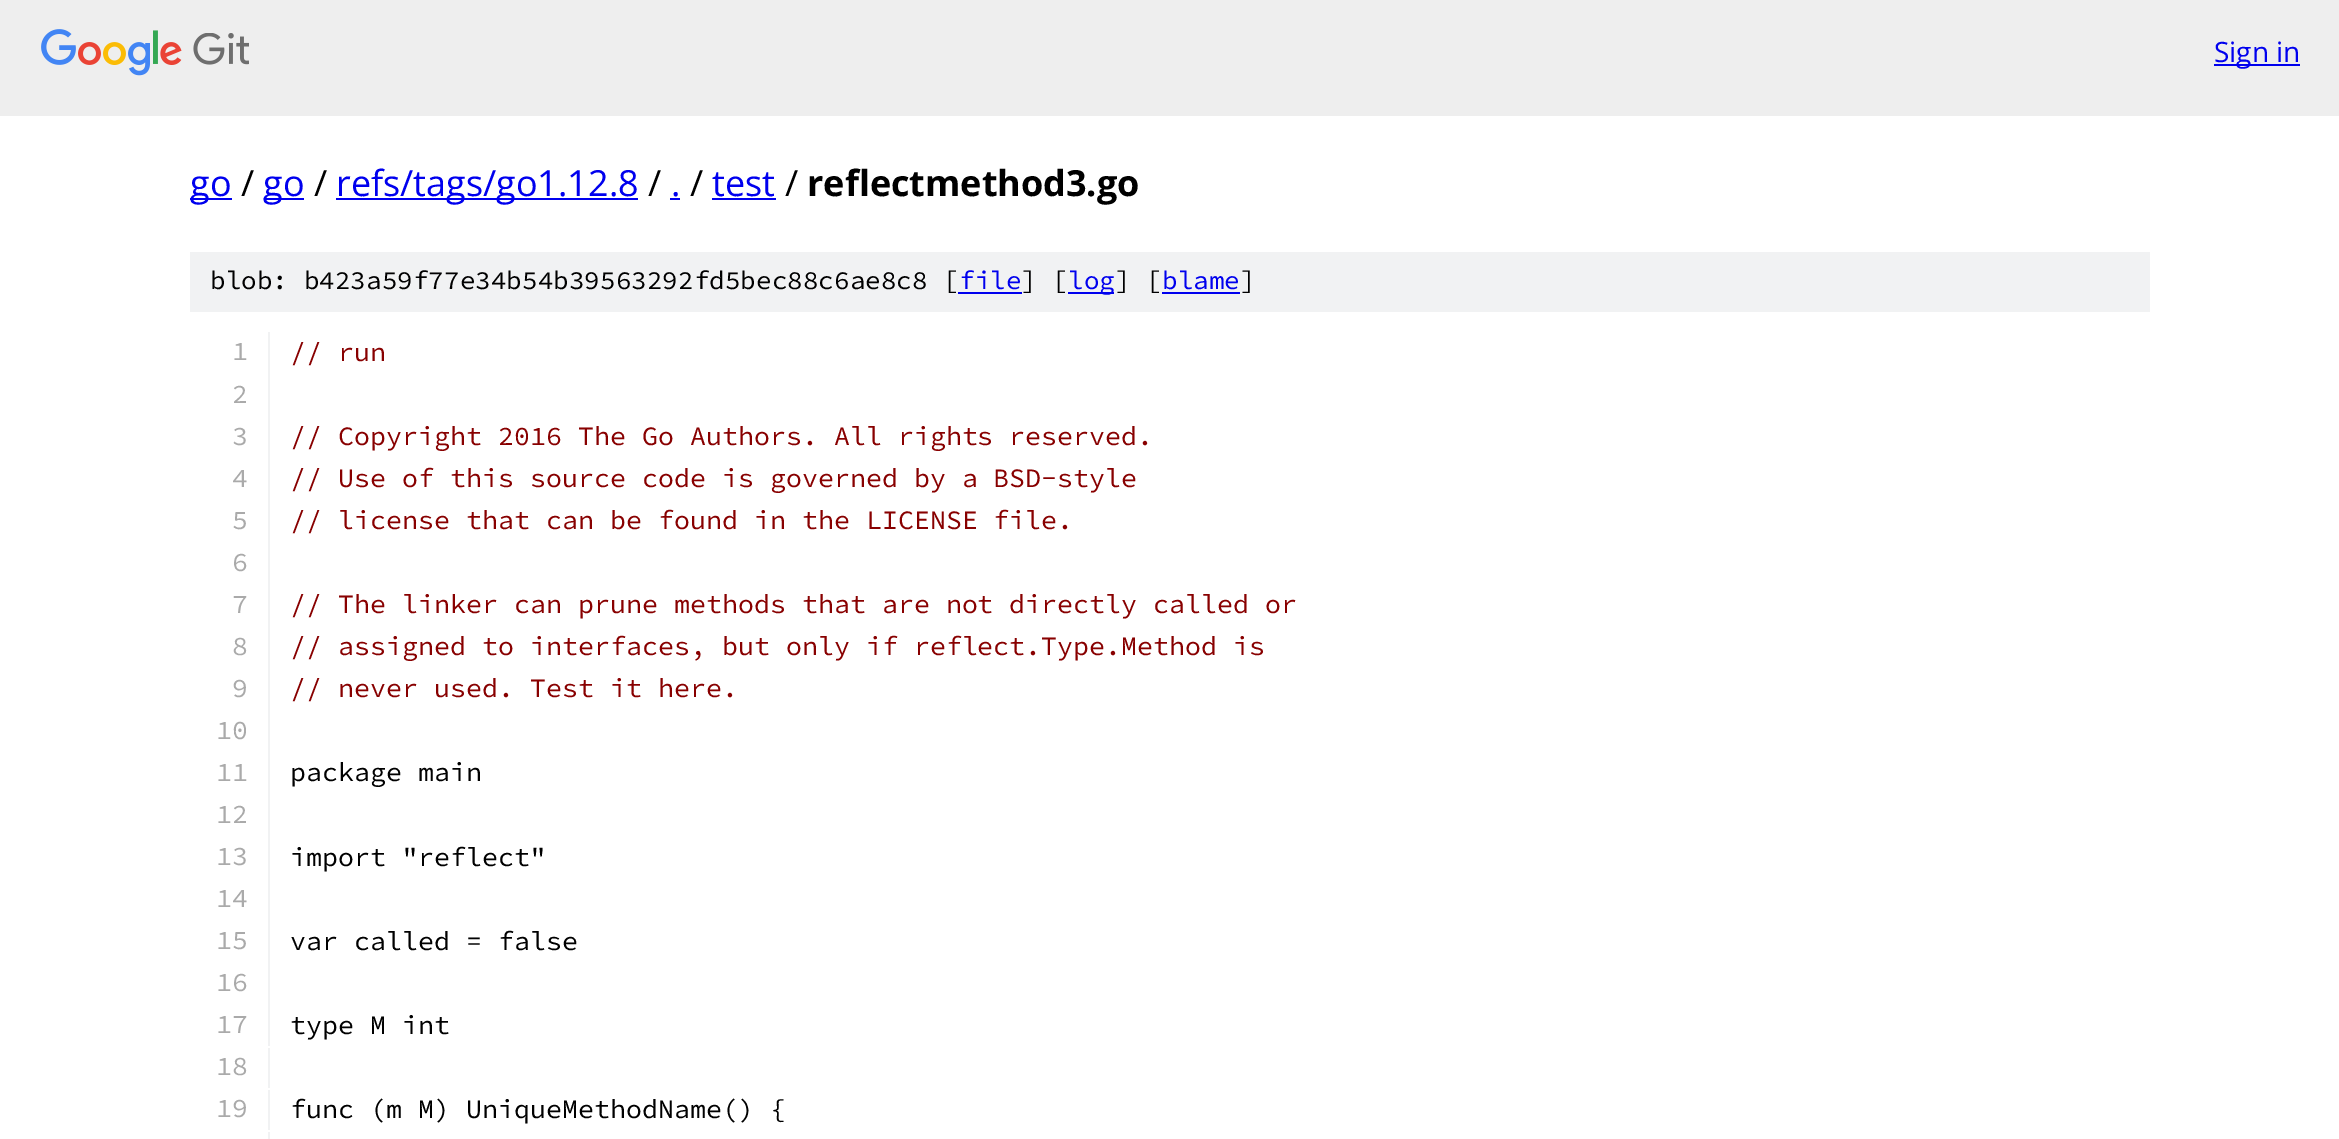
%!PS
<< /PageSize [2339 1139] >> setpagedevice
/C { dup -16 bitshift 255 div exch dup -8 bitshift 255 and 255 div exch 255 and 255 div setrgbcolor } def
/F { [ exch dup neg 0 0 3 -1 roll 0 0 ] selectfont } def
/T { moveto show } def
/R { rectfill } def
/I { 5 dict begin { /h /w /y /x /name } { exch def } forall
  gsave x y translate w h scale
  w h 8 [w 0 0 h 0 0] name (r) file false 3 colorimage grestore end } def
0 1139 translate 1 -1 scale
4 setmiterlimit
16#FFFFFF C
0 0 2339 1139 R
16#EEEEEE C
0 0 2339 116 R
(1.rgb) 41 29 208 47 I
16#0000EE C
2214 64 86 2 R
/OpenSans-Regular 28 F
(Sign in) 2214 62 T
190 198 42 2 R
/OpenSans-Regular 36 F
(go) 190 196 T
16#000000 C
(/) 241 196 T
16#0000EE C
264 198 40 2 R
(go) 263 196 T
16#000000 C
(/) 314 196 T
16#0000EE C
336 198 302 2 R
(refs/tags/go1.12.8) 336 196 T
16#000000 C
(/) 648 196 T
16#0000EE C
(.) 671 196 T
670 198 10 2 R
16#000000 C
(/) 690 196 T
16#0000EE C
(test) 712 196 T
712 198 64 2 R
16#000000 C
(/) 785 196 T
/OpenSans-Bold 36 F
(reflectmethod3.go) 807 196 T
16#F1F2F3 C
190 252 1960 60 R
/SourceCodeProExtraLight-ExtraLight 26 F
16#000000 C
(blob: b423a59f77e34b54b39563292fd5bec88c6ae8c8 [) 210 289 T
16#0000EE C
(file) 959 289 T
958 292 64 2 R
16#000000 C
(] [) 1021 289 T
16#0000EE C
1068 292 46 2 R
(log) 1068 289 T
16#000000 C
(] [) 1115 289 T
16#0000EE C
(blame) 1162 289 T
1162 292 78 2 R
16#000000 C
(]) 1240 289 T
16#F1F2F3 C
268 332 2 714 R
/SourceCodeProExtraLight-ExtraLight 26.65 F
16#AAAAAA C
(1) 232 360 T
16#880000 C
(// run) 290 361 T
16#AAAAAA C
(2) 232 403 T
(3) 232 445 T
16#880000 C
(// Copyright 2016 The Go Authors. All rights reserved.) 290 445 T
16#AAAAAA C
(4) 232 487 T
16#880000 C
(// Use of this source code is governed by a BSD-style) 290 487 T
16#AAAAAA C
(5) 232 529 T
16#880000 C
(// license that can be found in the LICENSE file.) 290 529 T
16#AAAAAA C
(6) 232 571 T
(7) 232 613 T
16#880000 C
(// The linker can prune methods that are not directly called or) 290 613 T
16#AAAAAA C
(8) 232 655 T
16#880000 C
(// assigned to interfaces, but only if reflect.Type.Method is) 290 655 T
16#AAAAAA C
(9) 232 697 T
16#880000 C
(// never used. Test it here.) 290 697 T
16#AAAAAA C
(10) 216 739 T
(11) 216 781 T
16#000000 C
(package main) 290 781 T
16#AAAAAA C
(12) 216 823 T
(13) 216 865 T
16#000000 C
(import "reflect") 290 866 T
16#AAAAAA C
(14) 216 907 T
(15) 216 949 T
16#000000 C
(var called = false) 290 950 T
16#AAAAAA C
(16) 216 991 T
(17) 216 1033 T
16#000000 C
(type M int) 290 1034 T
16#F1F2F3 C
268 1048 2 40 R
16#AAAAAA C
(18) 216 1075 T
16#F1F2F3 C
268 1090 2 40 R
16#AAAAAA C
(19) 216 1117 T
16#000000 C
(func \(m M\) UniqueMethodName\(\) {) 290 1118 T
16#F1F2F3 C
268 1132 2 7 R
showpage
